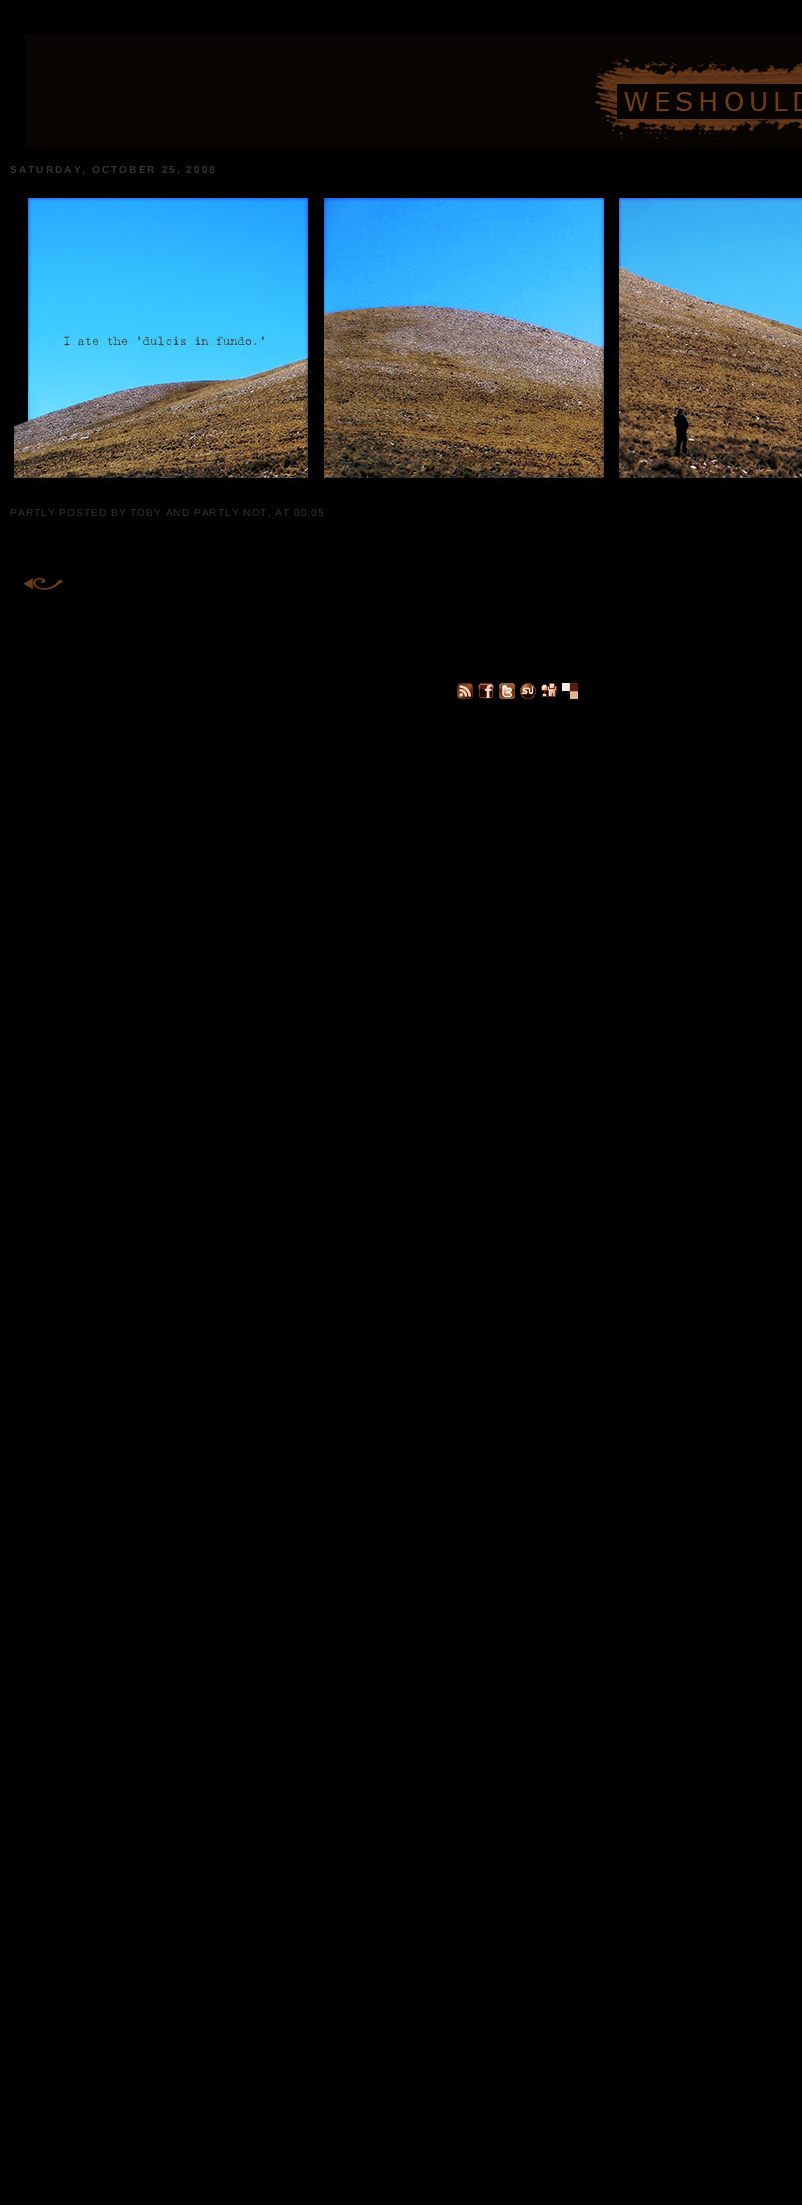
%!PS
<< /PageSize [802 2205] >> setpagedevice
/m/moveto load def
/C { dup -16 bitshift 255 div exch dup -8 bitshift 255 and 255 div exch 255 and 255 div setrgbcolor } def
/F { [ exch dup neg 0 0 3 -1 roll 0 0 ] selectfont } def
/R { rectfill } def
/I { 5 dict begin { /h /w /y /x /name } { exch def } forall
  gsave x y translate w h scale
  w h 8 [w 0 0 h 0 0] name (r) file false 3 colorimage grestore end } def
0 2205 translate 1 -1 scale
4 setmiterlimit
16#000000 C
0 0 802 2205 R
(1.rgb) 25 34 777 114 I
/LiberationSans-Bold 10.15 F
16#333333 C
10 173 m 2 0 (SATURDAY, OCTOBER 25, 2008) ashow
(2.rgb) 14 196 788 288 I
/LiberationSans-Regular 10.15 F
10 516 m 1 0 (PARTLY POSTED BY TOBY AND PARTLY NOT, AT 00:05) ashow
(3.rgb) 23 577 40 13 I
(4.rgb) 457 683 16 16 I
(5.rgb) 478 683 16 16 I
(6.rgb) 499 683 16 16 I
(7.rgb) 520 683 16 16 I
(8.rgb) 541 683 16 14 I
(9.rgb) 562 683 16 16 I
showpage
